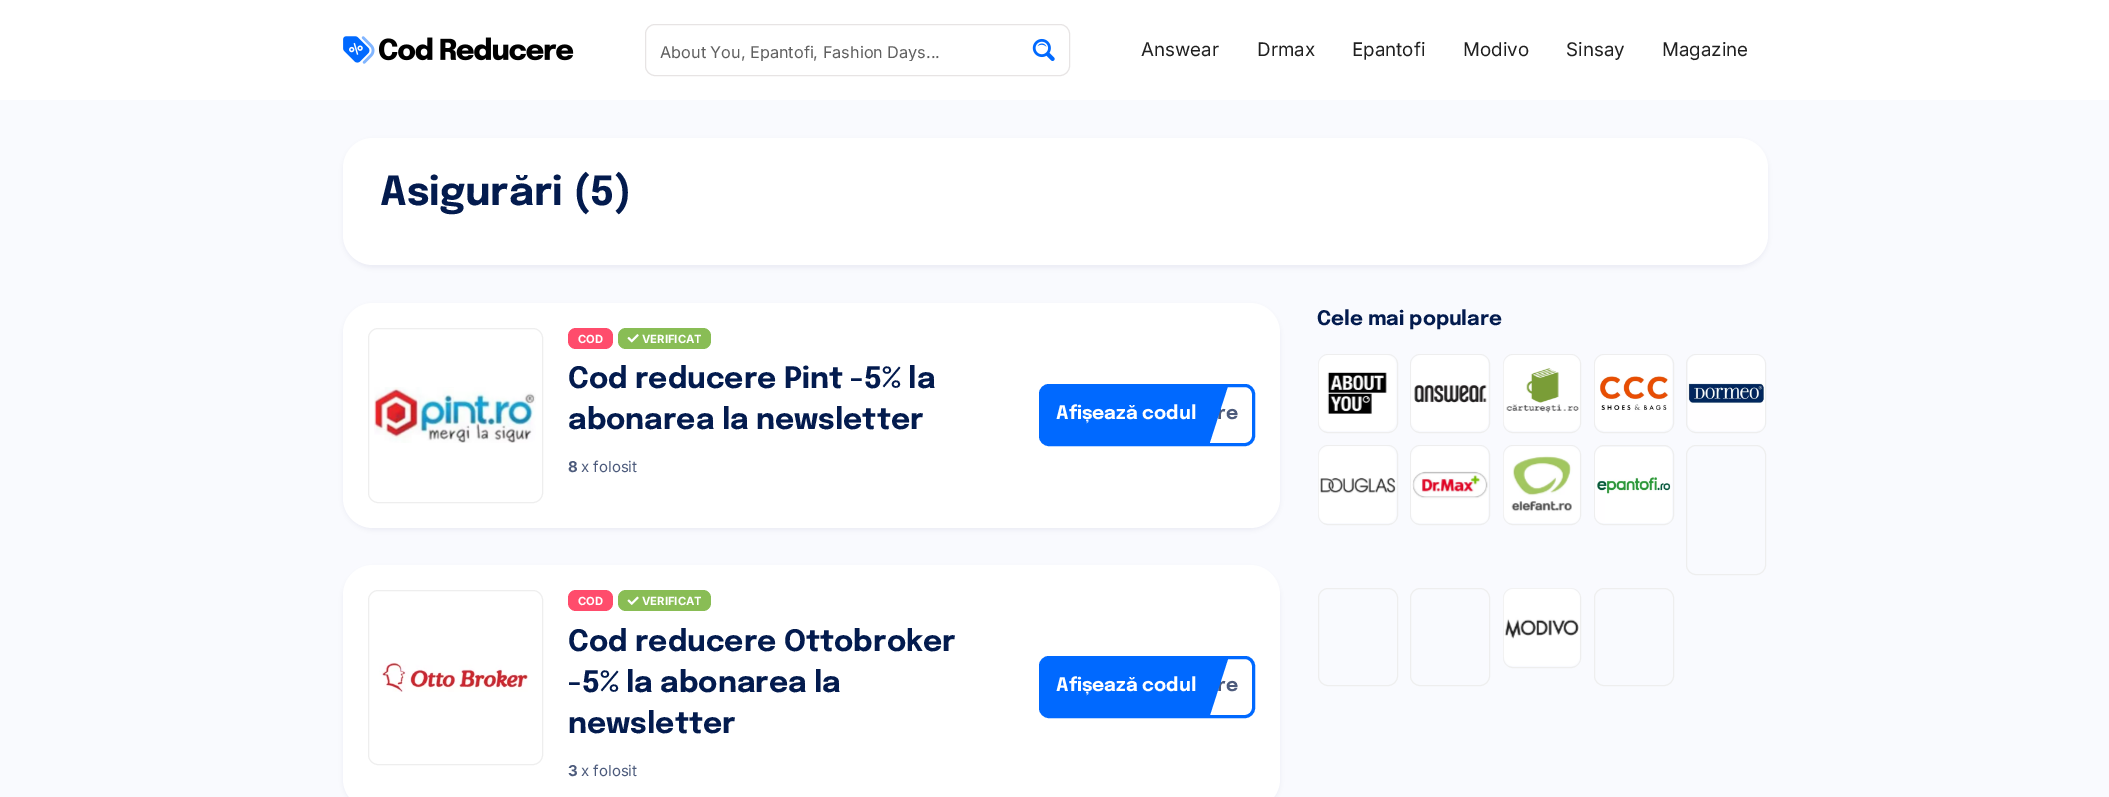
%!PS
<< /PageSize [2109 797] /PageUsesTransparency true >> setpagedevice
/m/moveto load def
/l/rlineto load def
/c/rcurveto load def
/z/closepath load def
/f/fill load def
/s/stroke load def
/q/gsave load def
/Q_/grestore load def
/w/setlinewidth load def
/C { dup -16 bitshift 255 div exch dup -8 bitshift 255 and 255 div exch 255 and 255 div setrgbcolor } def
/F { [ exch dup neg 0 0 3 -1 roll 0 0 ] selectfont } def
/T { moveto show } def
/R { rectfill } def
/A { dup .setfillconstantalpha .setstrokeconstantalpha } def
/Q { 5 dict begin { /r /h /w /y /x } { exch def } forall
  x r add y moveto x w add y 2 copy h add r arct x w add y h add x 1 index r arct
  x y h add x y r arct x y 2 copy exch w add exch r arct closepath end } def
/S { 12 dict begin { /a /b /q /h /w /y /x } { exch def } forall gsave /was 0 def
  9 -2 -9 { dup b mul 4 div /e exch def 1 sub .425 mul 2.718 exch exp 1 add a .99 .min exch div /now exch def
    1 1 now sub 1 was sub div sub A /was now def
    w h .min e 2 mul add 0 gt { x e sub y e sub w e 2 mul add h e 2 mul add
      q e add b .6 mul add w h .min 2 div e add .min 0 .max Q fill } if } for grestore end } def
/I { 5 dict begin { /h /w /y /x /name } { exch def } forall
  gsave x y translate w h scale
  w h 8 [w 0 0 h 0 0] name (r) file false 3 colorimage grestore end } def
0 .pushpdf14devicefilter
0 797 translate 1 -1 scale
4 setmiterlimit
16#F9FAFE C
0 0 2109 797 R
16#FFFFFF C
0 0 2109 100 R
(1.rgb) 343 36 231 28 I
16#E7E4E4 C
645.5 24.5 424 51 9.5 Q s
q
660 41 348 20 rectclip
/Inter-Regular 16.25 F
16#606060 C
(About You, Epantofi, Fashion Days...) 660 58 T
Q_
(2.rgb) 1032 38 23 23 I
/Inter-Regular 18.75 F
16#202020 C
(Answear) 1141 56 T
(Drmax) 1257 56 T
(Epantofi) 1352 56 T
(Modivo) 1463 56 T
(Sinsay) 1566 56 T
(Magazine) 1662 56 T
16#031B4E C
343 140 1425 128 30 2.5 .06 S
16#FFFFFF C
343 138 1425 127 30 Q f
/Epilogue-Bold 40 F
16#031B4E C
(Asigurări \(5\)) 380 205 T
/Epilogue-Bold 20 F
(Cele mai populare) 1317 325 T
16#EEEEEE C
1318.5 354.5 79 78 9.5 Q s
(3.rgb) 1318 355 78 76 I
1410.5 354.5 79 78 9.5 Q s
(4.rgb) 1411 355 77 76 I
1503.5 354.5 77 78 9.5 Q s
(5.rgb) 1503 355 77 76 I
1594.5 354.5 79 78 9.5 Q s
(6.rgb) 1595 355 77 76 I
1686.5 354.5 79 78 9.5 Q s
(7.rgb) 1688 355 77 76 I
1318.5 445.5 79 79 9.5 Q s
(8.rgb) 1318 446 78 77 I
1410.5 445.5 79 79 9.5 Q s
(9.rgb) 1411 446 77 77 I
1503.5 445.5 77 79 9.5 Q s
(10.rgb) 1503 446 77 77 I
1594.5 445.5 79 79 9.5 Q s
(11.rgb) 1595 447 77 76 I
1686.5 445.5 79 129 9.5 Q s
1318.5 588.5 79 97 9.5 Q s
1410.5 588.5 79 97 9.5 Q s
1503.5 588.5 77 79 9.5 Q s
(12.rgb) 1503 588 77 78 I
1594.5 588.5 79 97 9.5 Q s
16#031B4E C
343 305 937 225 30 2.5 .06 S
16#FFFFFF C
343 303 937 225 30 Q f
16#EEEEEE C
368.5 328.5 174 174 9.5 Q s
(13.rgb) 374 387 162 56 I
16#FF4C6C C
568 328 45 21 8 Q f
/Inter-Bold 11.25 F
16#FFFFFF C
(COD) 578 343 T
16#89BD55 C
618 328 93 21 8 Q f
(14.rgb) 627 334 12 9 I
16#FFFFFF C
(VERIFICAT) 642 343 T
/Epilogue-Bold 29.5 F
16#031B4E C
(Cod reducere Pint -5% la) 568 388 T
(abonarea la newsletter) 568 429 T
/Inter-Bold 15 F
16#4D5B7C C
(8) 568 472 T
/Inter-Regular 15 F
(x folosit) 581 472 T
16#0069FF C
3 w
1040.5 385.5 213 59 8.5 Q s
1045 386 m 165 0 l 0 58 l -165 0 l -2 0 -4 -2 -4 -4 c 0 -50 l 0 -2 2 -4 4 -4 c z f
/Epilogue-Bold 18.75 F
16#FFFFFF C
(Afișează codul) 1056 419 T
16#4D5B7C C
(re) 1217 419 T
16#0069FF C
1210 386 m 18 0 l -18 56 l z f
16#031B4E C
343 568 937 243 30 2.5 .06 S
16#FFFFFF C
343 565 937 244 30 Q f
16#EEEEEE C
1 w
368.5 590.5 174 174 9.5 Q s
(15.rgb) 379 660 150 32 I
16#FF4C6C C
568 590 45 21 8 Q f
/Inter-Bold 11.25 F
16#FFFFFF C
(COD) 578 605 T
16#89BD55 C
618 590 93 21 8 Q f
(16.rgb) 627 596 12 9 I
16#FFFFFF C
(VERIFICAT) 642 605 T
/Epilogue-Bold 29.5 F
16#031B4E C
(Cod reducere Ottobroker) 568 651 T
(-5% la abonarea la) 568 692 T
(newsletter) 568 733 T
/Inter-Bold 15 F
16#4D5B7C C
(3) 568 776 T
/Inter-Regular 15 F
(x folosit) 581 776 T
16#0069FF C
3 w
1040.5 657.5 213 59 8.5 Q s
1045 659 m 165 0 l 0 56 l -165 0 l -2 0 -4 -2 -4 -4 c 0 -48 l 0 -2 2 -4 4 -4 c z f
/Epilogue-Bold 18.75 F
16#FFFFFF C
(Afișează codul) 1056 691 T
16#4D5B7C C
(re) 1217 691 T
16#0069FF C
1210 659 m 18 0 l -18 56 l z f
.poppdf14devicefilter showpage
